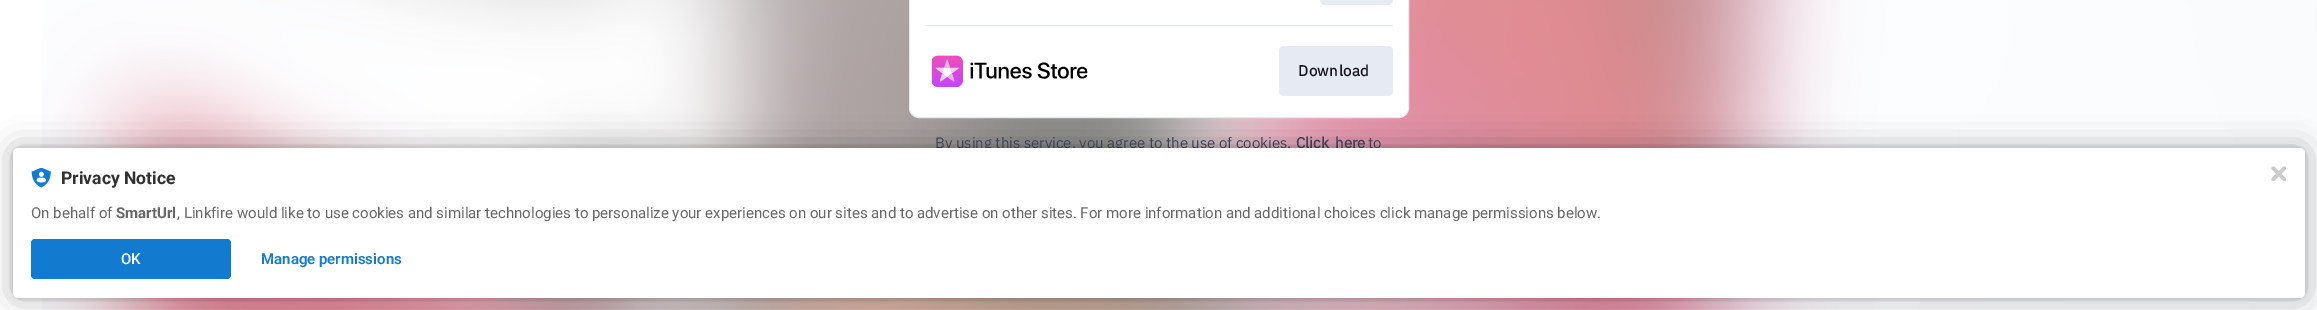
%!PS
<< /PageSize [2317 310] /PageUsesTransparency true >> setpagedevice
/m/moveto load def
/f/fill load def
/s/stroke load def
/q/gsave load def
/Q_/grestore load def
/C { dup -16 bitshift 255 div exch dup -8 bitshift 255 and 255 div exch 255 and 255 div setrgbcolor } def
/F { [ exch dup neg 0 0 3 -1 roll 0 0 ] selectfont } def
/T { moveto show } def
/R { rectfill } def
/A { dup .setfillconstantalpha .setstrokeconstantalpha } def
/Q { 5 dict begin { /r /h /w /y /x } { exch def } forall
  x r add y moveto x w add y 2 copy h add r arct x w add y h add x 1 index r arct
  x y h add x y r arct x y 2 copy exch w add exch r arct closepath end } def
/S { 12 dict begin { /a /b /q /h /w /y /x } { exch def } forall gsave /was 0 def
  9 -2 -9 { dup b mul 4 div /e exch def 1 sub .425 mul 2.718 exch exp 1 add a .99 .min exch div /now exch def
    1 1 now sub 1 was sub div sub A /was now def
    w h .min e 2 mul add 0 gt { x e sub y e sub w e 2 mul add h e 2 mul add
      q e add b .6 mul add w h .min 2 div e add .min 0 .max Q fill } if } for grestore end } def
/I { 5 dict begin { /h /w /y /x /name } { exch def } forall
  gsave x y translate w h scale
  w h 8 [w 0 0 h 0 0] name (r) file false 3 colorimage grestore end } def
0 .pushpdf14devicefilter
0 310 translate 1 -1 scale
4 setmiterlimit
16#FFFFFF C
0 0 2317 310 R
(1.rgb) 42 0 2275 310 I
909.5 -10.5 499 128 9.5 Q q f Q_
16#E6EAF2 C
s
16#FFFFFF C
910 -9 498 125 9 Q f
16#E6EAF2 C
1320 -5 73 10 5 Q f
925 25 468 1 R
(2.rgb) 931 55 157 32 I
1279 46 114 50 5 Q f
/IBMPlexSans-Bold 15 F
16#181721 C
1298 76 m .5 0 (Download) ashow
/IBMPlexSans-Regular 15 F
16#454B5F C
(By using this service, you agree to the use of cookies.) 935 148 T
/IBMPlexSans-Bold 15 F
1296 148 m 3 0 32 (Click here) widthshow
/IBMPlexSans-Regular 15 F
(to) 1368 148 T
16#000000 C
13 148 2292 150 5 2.5 .12 S
13 148 2292 150 5 15 .3 S
16#FFFFFF C
13 148 2292 150 5 Q f
(3.rgb) 31 168 20 20 I
/Roboto-Bold 17.5 F
16#323232 C
(Privacy Notice) 61 184 T
/Roboto-Regular 15 F
16#686868 C
(On behalf of) 31 218 T
/Roboto-Bold 15 F
(SmartUrl) 116 218 T
/Roboto-Regular 15 F
(, Linkfire would like to use cookies and similar technologies to personalize your experiences on our sites and to advertise on other sites. For more information and additional choices click manage permissions below.) 177 218 T
16#137BCF C
31 239 200 40 4 Q f
/Roboto-Medium 15 F
16#FFFFFF C
(OK) 121 264 T
/Roboto-SemiBold 15 F
16#137BCF C
(Manage permissions) 261 264 T
(4.rgb) 2271 166 15 15 I
.poppdf14devicefilter showpage
